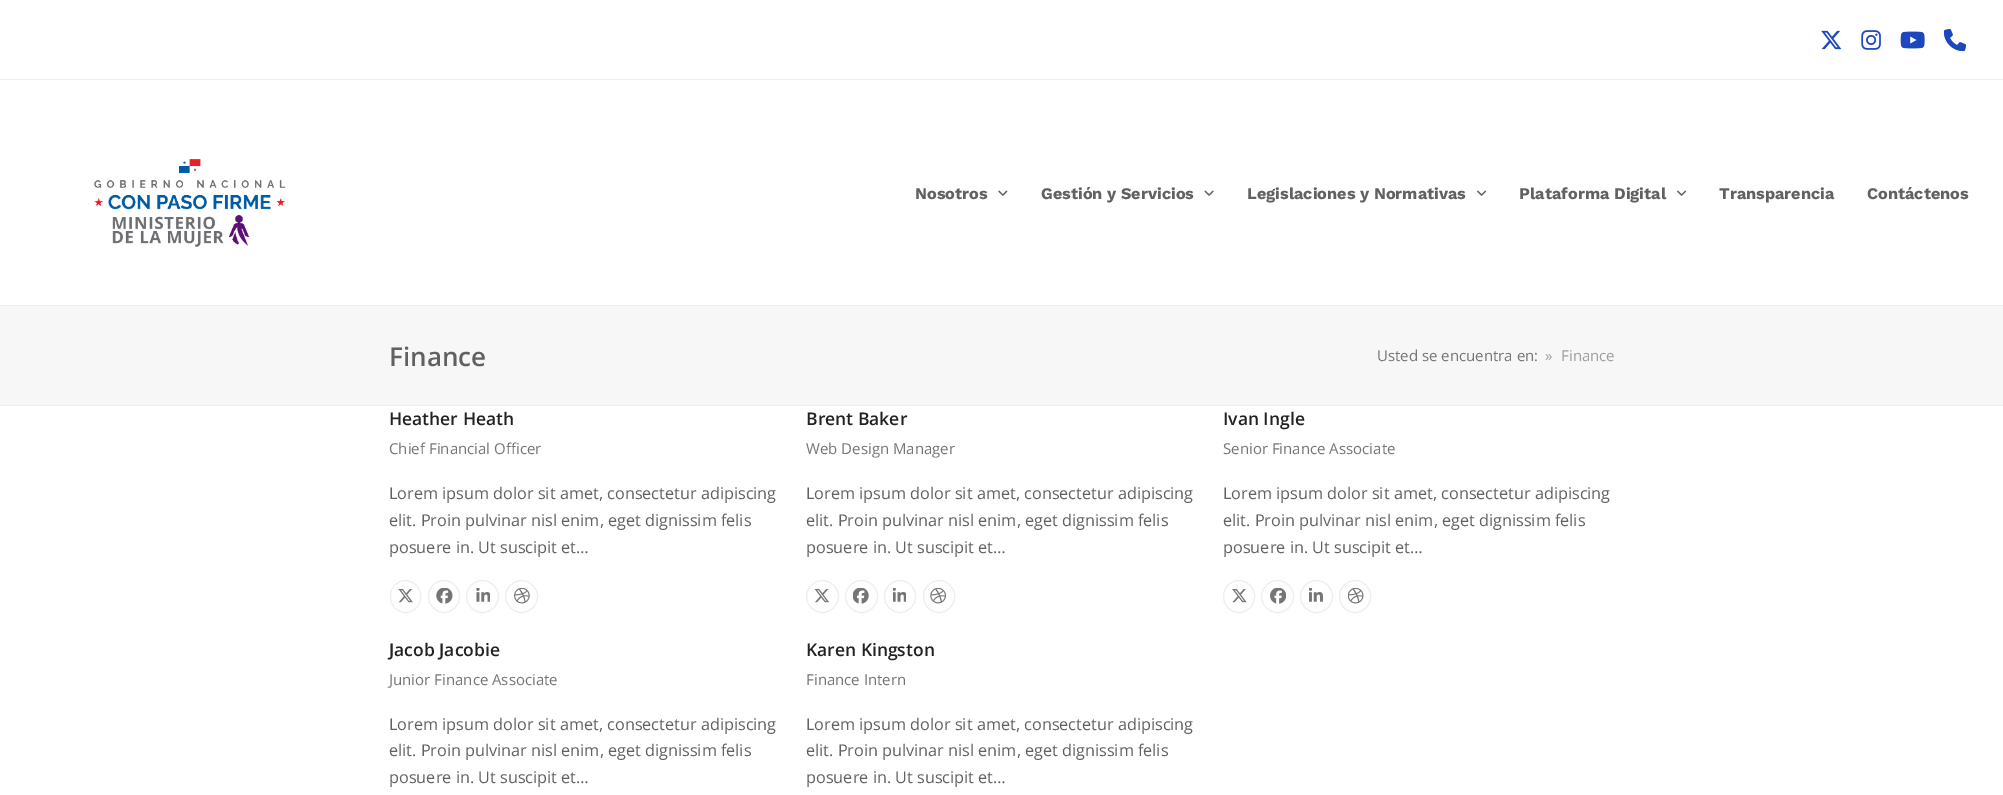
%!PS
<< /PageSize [2003 795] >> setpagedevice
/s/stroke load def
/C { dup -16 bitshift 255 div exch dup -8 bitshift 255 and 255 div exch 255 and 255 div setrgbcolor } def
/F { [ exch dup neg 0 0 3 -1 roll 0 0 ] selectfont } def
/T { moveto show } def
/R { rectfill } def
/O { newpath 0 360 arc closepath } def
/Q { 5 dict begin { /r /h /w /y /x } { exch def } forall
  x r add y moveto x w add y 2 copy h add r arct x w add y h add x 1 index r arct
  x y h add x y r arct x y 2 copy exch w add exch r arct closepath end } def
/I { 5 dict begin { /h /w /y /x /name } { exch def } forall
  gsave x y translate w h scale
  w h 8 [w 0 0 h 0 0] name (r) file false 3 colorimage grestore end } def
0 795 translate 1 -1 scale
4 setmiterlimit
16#FFFFFF C
0 0 2003 795 R
16#EEEEEE C
0 79 2003 1 R
(1.rgb) 1821 30 21 20 I
(2.rgb) 1861 30 20 20 I
(3.rgb) 1900 31 25 18 I
(4.rgb) 1944 29 22 22 I
(5.rgb) 94 159 192 88 I
/WorkSans-Bold 16.25 F
16#616161 C
(Nosotros) 915 199 T
(6.rgb) 998 190 10 6 I
(Gestión y Servicios) 1041 199 T
(7.rgb) 1204 190 10 6 I
(Legislaciones y Normativas) 1247 199 T
(8.rgb) 1477 190 9 6 I
(Plataforma Digital) 1519 199 T
(8.rgb) 1677 190 9 6 I
(Transparencia) 1719 199 T
(Contáctenos) 1867 199 T
16#F7F7F7 C
0 306 2003 99 R
16#EEEEEE C
0 305 2003 1 R
0 405 2003 1 R
/OpenSans-SemiBold 26 F
16#616161 C
(Finance) 389 366 T
/OpenSans-Regular 15 F
16#757575 C
(Usted se encuentra en:) 1377 361 T
16#9E9E9E C
(») 1545 361 T
(Finance) 1561 361 T
/OpenSans-SemiBold 17.5 F
16#222222 C
(Heather Heath) 389 425 T
/OpenSans-Regular 15 F
16#757575 C
(Chief Financial Officer) 389 454 T
/OpenSans-Regular 16.25 F
16#616161 C
(Lorem ipsum dolor sit amet, consectetur adipiscing) 389 499 T
(elit. Proin pulvinar nisl enim, eget dignissim felis) 389 526 T
(posuere in. Ut suscipit et…) 389 553 T
16#EEEEEE C
390.5 580.5 30 32 15 Q s
(9.rgb) 398 589 15 14 I
428.5 580.5 31 32 15.5 Q s
(10.rgb) 436 588 17 16 I
482.5 596.5 16 O s
(11.rgb) 476 588 14 14 I
521.5 596.5 16 O s
(12.rgb) 514 588 16 16 I
/OpenSans-SemiBold 17.5 F
16#222222 C
(Brent Baker) 806 425 T
/OpenSans-Regular 15 F
16#757575 C
(Web Design Manager) 806 454 T
/OpenSans-Regular 16.25 F
16#616161 C
(Lorem ipsum dolor sit amet, consectetur adipiscing) 806 499 T
(elit. Proin pulvinar nisl enim, eget dignissim felis) 806 526 T
(posuere in. Ut suscipit et…) 806 553 T
16#EEEEEE C
822.5 596.5 16 O s
(13.rgb) 814 589 15 14 I
861.5 596.5 16 O s
(14.rgb) 853 588 16 16 I
884.5 580.5 31 32 15.5 Q s
(15.rgb) 893 588 13 14 I
923.5 580.5 31 32 15.5 Q s
(16.rgb) 930 588 16 16 I
/OpenSans-SemiBold 17.5 F
16#222222 C
(Ivan Ingle) 1223 425 T
/OpenSans-Regular 15 F
16#757575 C
(Senior Finance Associate) 1223 454 T
/OpenSans-Regular 16.25 F
16#616161 C
(Lorem ipsum dolor sit amet, consectetur adipiscing) 1223 499 T
(elit. Proin pulvinar nisl enim, eget dignissim felis) 1223 526 T
(posuere in. Ut suscipit et…) 1223 553 T
16#EEEEEE C
1223.5 580.5 31 32 15.5 Q s
(17.rgb) 1232 589 15 14 I
1277.5 596.5 16 O s
(18.rgb) 1270 588 16 16 I
1316.5 596.5 16 O s
(19.rgb) 1309 588 14 14 I
1339.5 580.5 31 32 15.5 Q s
(20.rgb) 1348 588 16 16 I
/OpenSans-SemiBold 17.5 F
16#222222 C
(Jacob Jacobie) 389 656 T
/OpenSans-Regular 15 F
16#757575 C
(Junior Finance Associate) 389 685 T
/OpenSans-Regular 16.25 F
16#616161 C
(Lorem ipsum dolor sit amet, consectetur adipiscing) 389 730 T
(elit. Proin pulvinar nisl enim, eget dignissim felis) 389 756 T
(posuere in. Ut suscipit et…) 389 783 T
/OpenSans-SemiBold 17.5 F
16#222222 C
(Karen Kingston) 806 656 T
/OpenSans-Regular 15 F
16#757575 C
(Finance Intern) 806 685 T
/OpenSans-Regular 16.25 F
16#616161 C
(Lorem ipsum dolor sit amet, consectetur adipiscing) 806 730 T
(elit. Proin pulvinar nisl enim, eget dignissim felis) 806 756 T
(posuere in. Ut suscipit et…) 806 783 T
showpage
